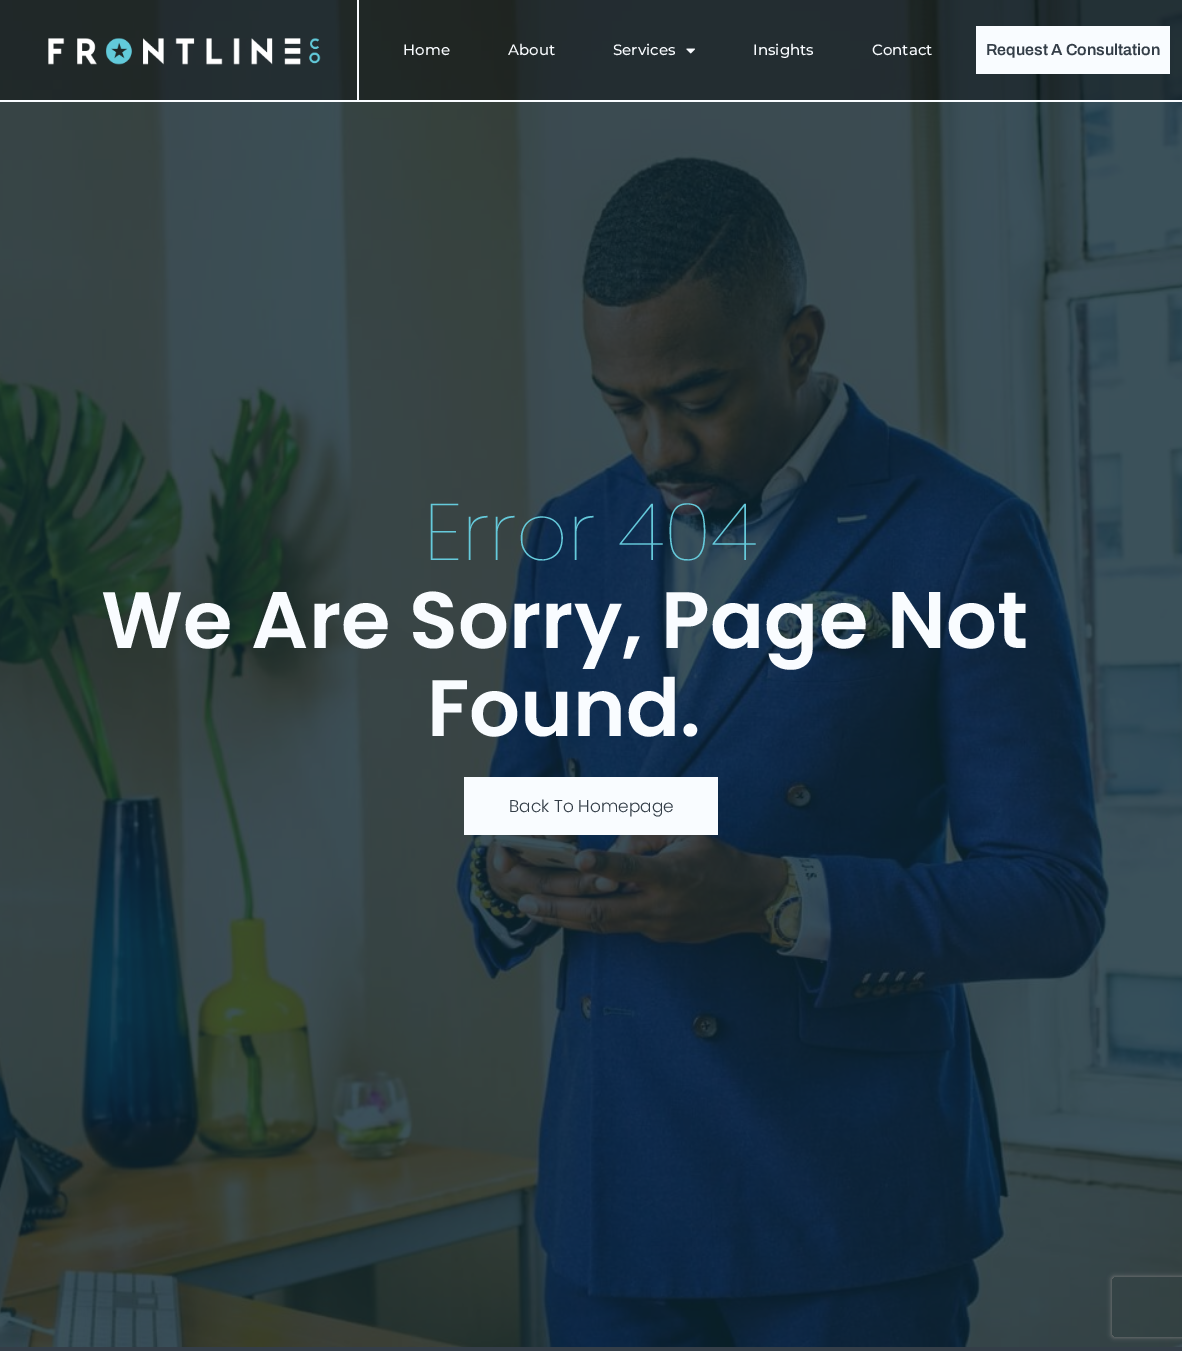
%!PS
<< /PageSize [1182 1351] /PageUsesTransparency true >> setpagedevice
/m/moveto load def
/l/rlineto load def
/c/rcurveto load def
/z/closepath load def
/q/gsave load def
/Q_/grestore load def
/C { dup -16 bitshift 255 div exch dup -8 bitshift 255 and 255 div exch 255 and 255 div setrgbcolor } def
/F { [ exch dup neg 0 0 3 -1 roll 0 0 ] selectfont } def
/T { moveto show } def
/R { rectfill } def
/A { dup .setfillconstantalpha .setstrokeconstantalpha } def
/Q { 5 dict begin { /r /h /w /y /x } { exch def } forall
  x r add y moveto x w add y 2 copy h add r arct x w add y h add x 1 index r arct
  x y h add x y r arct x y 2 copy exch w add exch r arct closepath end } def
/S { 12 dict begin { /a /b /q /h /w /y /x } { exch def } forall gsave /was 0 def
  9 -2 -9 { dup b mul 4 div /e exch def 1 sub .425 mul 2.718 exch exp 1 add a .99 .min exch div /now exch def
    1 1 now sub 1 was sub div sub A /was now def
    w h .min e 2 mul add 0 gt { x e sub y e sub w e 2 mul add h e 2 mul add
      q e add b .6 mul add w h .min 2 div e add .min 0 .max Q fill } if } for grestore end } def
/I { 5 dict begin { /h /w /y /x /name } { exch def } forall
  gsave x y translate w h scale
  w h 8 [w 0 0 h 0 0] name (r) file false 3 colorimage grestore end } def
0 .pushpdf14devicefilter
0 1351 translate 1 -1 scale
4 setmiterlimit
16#FFFFFF C
0 0 1182 1351 R
(3.rgb) 0 0 1182 1347 I
0.4 A
16#000000 C
0 0 1182 100 R
1 A
16#F9FCFF C
0 100 1182 2 R
357 0 2 100 R
(1.rgb) 48 38 273 27 I
/Montserrat-Medium 15 F
(Home) 403 55 T
(About) 508 55 T
(Services) 613 55 T
(2.rgb) 686 48 9 6 I
(Insights) 753 55 T
(Contact) 872 55 T
976 26 194 48 R
/Archivo-SemiBold 16 F
16#343E48 C
(Request A Consultation) 986 55 T
0 1347 1182 4 R
/Poppins-Thin 80 F
16#65CADB C
(Error 404) 424 560 T
/Poppins-SemiBold 80 F
16#F9FCFF C
(We Are Sorry, Page Not) 101 648 T
(Found.) 427 736 T
464 777 254 58 R
/Poppins-Light 17 F
16#343E48 C
(Back To Homepage) 509 812 T
q
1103 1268 m 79 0 l 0 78 l -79 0 l z 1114 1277 m 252 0 l 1 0 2 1 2 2 c 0 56 l 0 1 -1 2 -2 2 c -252 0 l -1 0 -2 -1 -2 -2 c 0 -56 l 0 -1 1 -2 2 -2 c z eoclip newpath
16#808080 C
1112 1277 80 60 2 2.5 1 S
Q_
.poppdf14devicefilter showpage
